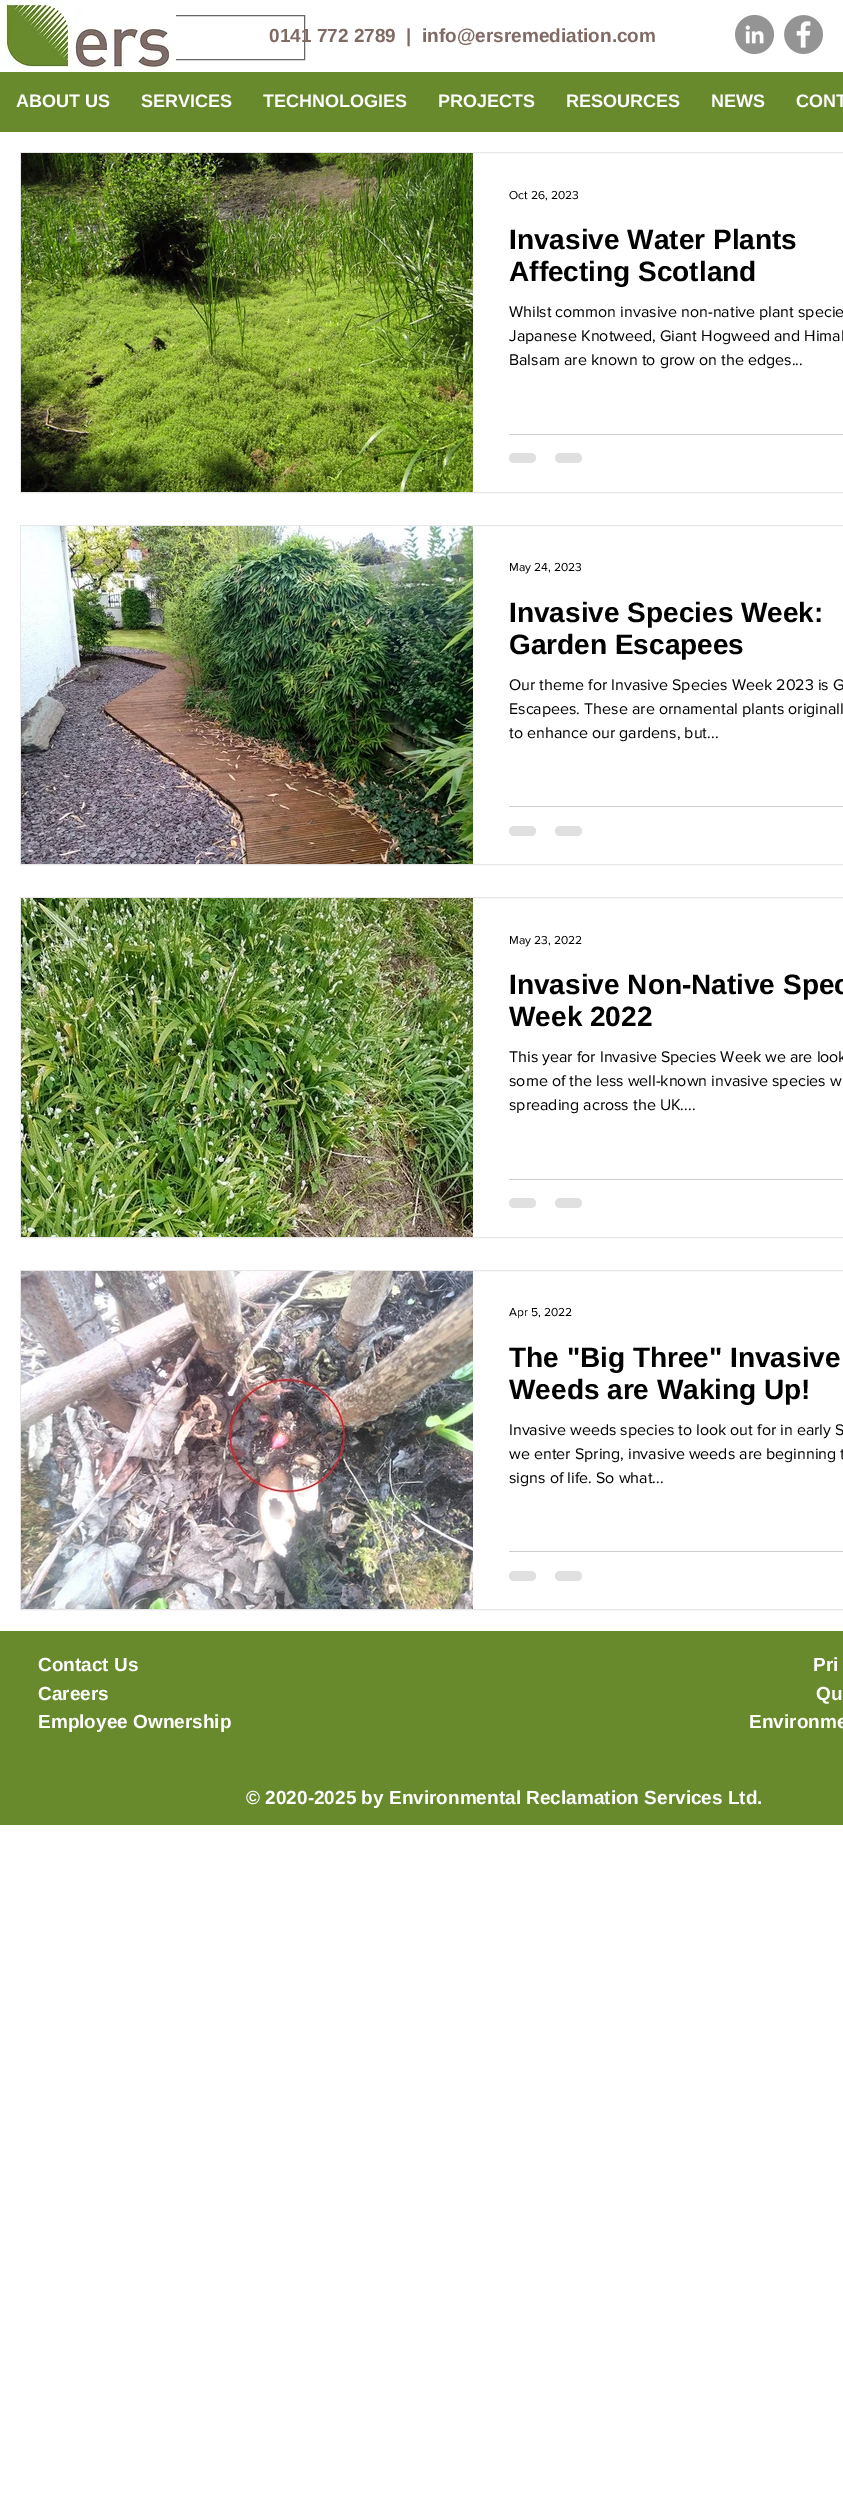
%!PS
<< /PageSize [843 2517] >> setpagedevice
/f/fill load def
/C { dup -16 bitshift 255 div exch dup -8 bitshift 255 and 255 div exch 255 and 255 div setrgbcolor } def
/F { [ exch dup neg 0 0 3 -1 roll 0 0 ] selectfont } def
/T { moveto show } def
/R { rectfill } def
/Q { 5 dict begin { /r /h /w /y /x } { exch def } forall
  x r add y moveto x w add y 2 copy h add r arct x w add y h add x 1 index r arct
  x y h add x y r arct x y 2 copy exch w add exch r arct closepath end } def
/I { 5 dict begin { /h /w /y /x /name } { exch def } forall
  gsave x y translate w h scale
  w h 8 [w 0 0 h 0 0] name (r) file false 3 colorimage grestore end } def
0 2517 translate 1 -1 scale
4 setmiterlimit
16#FFFFFF C
0 0 843 2517 R
16#666666 C
.5 15.5 304 44 rectstroke
(1.rgb) 0 0 176 72 I
/LiberationSans-Bold 19 F
16#806A64 C
(0141 772 2789) 269 42 T
(|) 406 42 T
(info@ersremediation.com) 422 42 T
(2.rgb) 735 15 39 39 I
(3.rgb) 784 15 39 39 I
16#688A2C C
0 72 843 60 R
/LiberationSans-Bold 18 F
16#FFFFFF C
(ABOUT US) 16 107 T
(SERVICES) 141 107 T
(TECHNOLOGIES) 263 107 T
(PROJECTS) 438 107 T
(RESOURCES) 566 107 T
(NEWS) 711 107 T
(CONT) 796 107 T
16#E8E6E6 C
20.5 152.5 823 340 rectstroke
(4.rgb) 21 153 452 339 I
/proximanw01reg-Regular 12 F
16#000000 C
(Oct 26, 2023) 509 199 T
/LiberationSans-Bold 28 F
(Invasive Water Plants) 509 249 T
(Affecting Scotland) 509 281 T
/proximanw01reg-Regular 16 F
(Whilst common invasive non-native plant specie) 509 317 T
(Japanese Knotweed, Giant Hogweed and Himal) 509 341 T
(Balsam are known to grow on the edges...) 509 365 T
16#CCCCCC C
509 434 334 1 R
16#E0E0E0 C
509 453 27 10 5 Q f
555 453 27 10 5 Q f
16#E8E6E6 C
20.5 525.5 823 339 rectstroke
(5.rgb) 21 526 452 338 I
/proximanw01reg-Regular 12 F
16#000000 C
(May 24, 2023) 509 571 T
/LiberationSans-Bold 28 F
(Invasive Species Week:) 509 622 T
(Garden Escapees) 509 654 T
/proximanw01reg-Regular 16 F
(Our theme for Invasive Species Week 2023 is G) 509 690 T
(Escapees. These are ornamental plants originall) 509 714 T
(to enhance our gardens, but...) 509 738 T
16#CCCCCC C
509 806 334 1 R
16#E0E0E0 C
509 826 27 10 5 Q f
555 826 27 10 5 Q f
16#E8E6E6 C
20.5 897.5 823 340 rectstroke
(6.rgb) 21 898 452 339 I
/proximanw01reg-Regular 12 F
16#000000 C
(May 23, 2022) 509 944 T
/LiberationSans-Bold 28 F
(Invasive Non-Native Spec) 509 994 T
(Week 2022) 509 1026 T
/proximanw01reg-Regular 16 F
(This year for Invasive Species Week we are look) 509 1062 T
(some of the less well-known invasive species w) 509 1086 T
(spreading across the UK....) 509 1110 T
16#CCCCCC C
509 1179 334 1 R
16#E0E0E0 C
509 1198 27 10 5 Q f
555 1198 27 10 5 Q f
16#E8E6E6 C
20.5 1270.5 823 339 rectstroke
(7.rgb) 21 1271 452 338 I
/proximanw01reg-Regular 12 F
16#000000 C
(Apr 5, 2022) 509 1316 T
/LiberationSans-Bold 28 F
(The "Big Three" Invasive) 509 1367 T
(Weeds are Waking Up!) 509 1399 T
/proximanw01reg-Regular 16 F
(Invasive weeds species to look out for in early S) 509 1435 T
(we enter Spring, invasive weeds are beginning t) 509 1459 T
(signs of life. So what...) 509 1483 T
16#CCCCCC C
509 1551 334 1 R
16#E0E0E0 C
509 1571 27 10 5 Q f
555 1571 27 10 5 Q f
16#688A2C C
0 1631 843 194 R
/LiberationSans-Bold 19 F
16#FFFFFF C
(Contact Us) 38 1671 T
(Careers) 38 1700 T
(Employee Ownership) 38 1728 T
(Pri) 813 1671 T
(Qu) 816 1700 T
(Environme) 749 1728 T
(© 2020-2025 by Environmental Reclamation Services Ltd.) 246 1804 T
showpage
